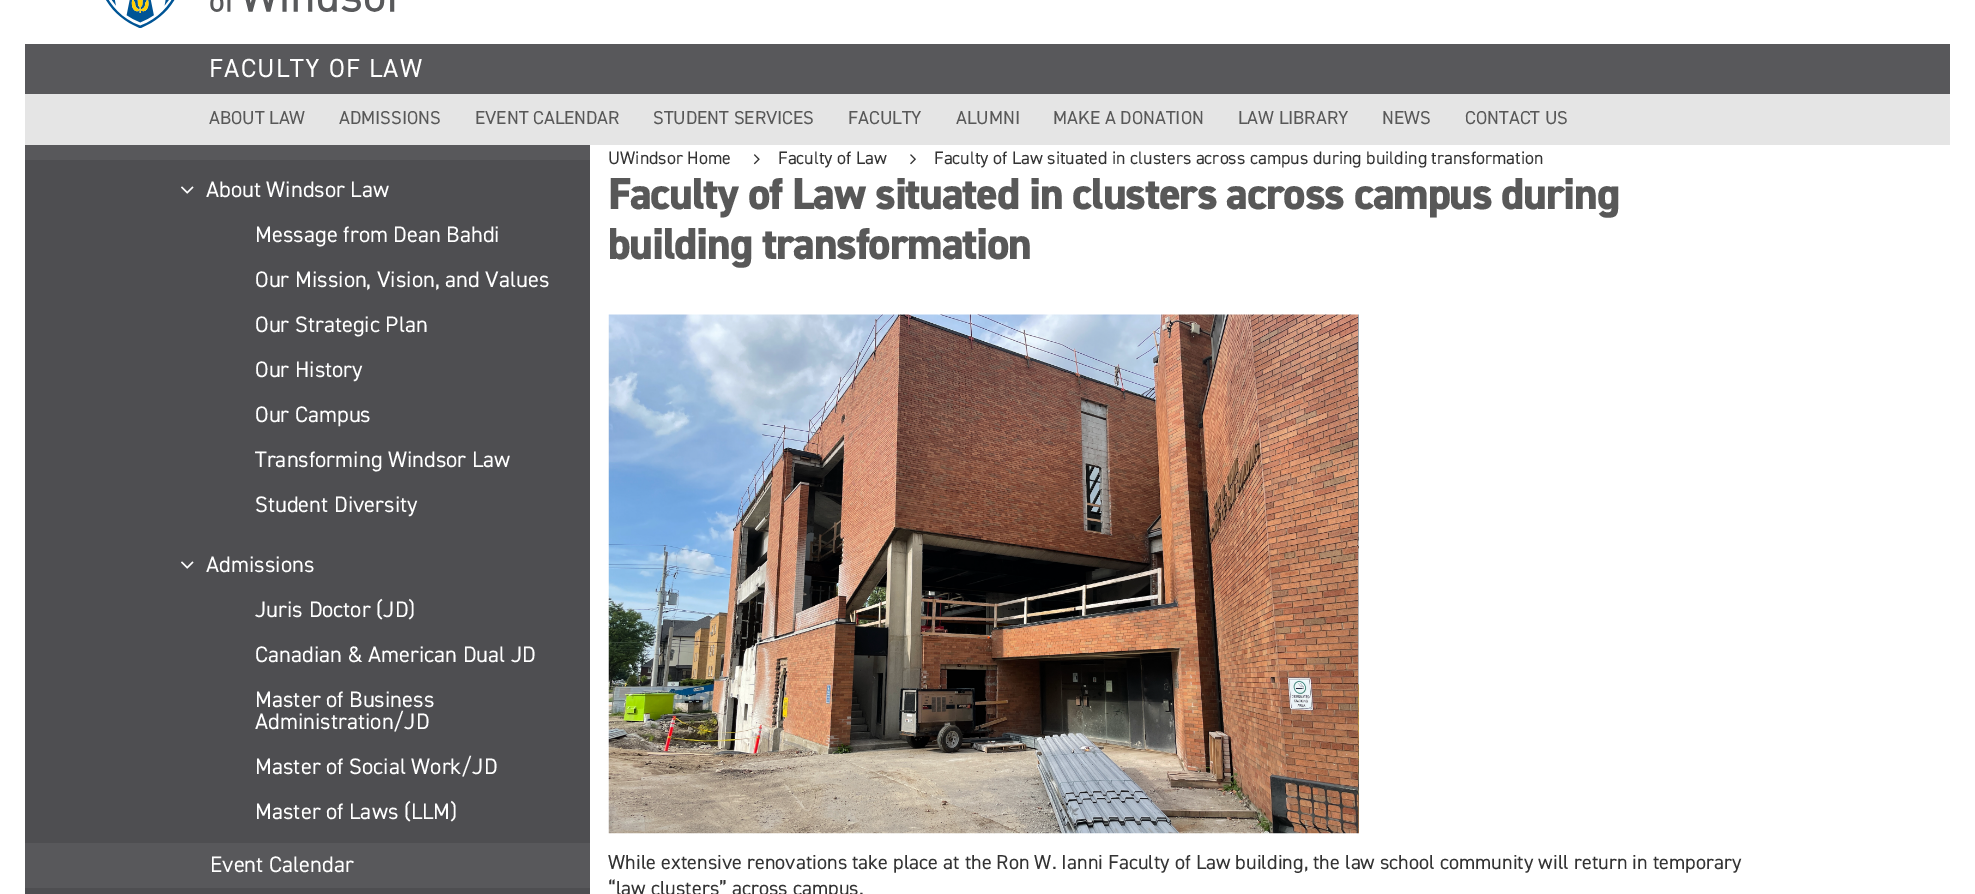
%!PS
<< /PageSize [1975 894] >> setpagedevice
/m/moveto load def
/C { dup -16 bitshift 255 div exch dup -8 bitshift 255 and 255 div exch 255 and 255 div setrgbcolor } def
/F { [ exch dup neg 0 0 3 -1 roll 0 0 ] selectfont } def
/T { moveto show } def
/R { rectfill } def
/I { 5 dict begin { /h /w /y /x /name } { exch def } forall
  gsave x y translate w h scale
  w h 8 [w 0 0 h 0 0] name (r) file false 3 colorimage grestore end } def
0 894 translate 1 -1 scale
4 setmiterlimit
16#FFFFFF C
0 0 1975 894 R
(1.rgb) 106 0 289 28 I
16#58585B C
25 44 1925 50 R
/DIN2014-Regular 26.25 F
16#FFFFFF C
209 77 m 1.25 0 (FACULTY OF LAW) ashow
16#E5E5E5 C
25 94 1925 51 R
/DIN2014-Regular 18.75 F
16#585858 C
(ABOUT LAW) 209 124 T
(ADMISSIONS) 339 124 T
(EVENT CALENDAR) 475 124 T
(STUDENT SERVICES) 653 124 T
(FACULTY) 848 124 T
(ALUMNI) 956 124 T
(MAKE A DONATION) 1053 124 T
(LAW LIBRARY) 1238 124 T
(NEWS) 1382 124 T
(CONTACT US) 1465 124 T
16#58585B C
25 145 565 743 R
16#4E4E51 C
25 160 565 683 R
(2.rgb) 181 186 13 8 I
/DIN2014-Regular 22.5 F
16#FFFFFF C
(About Windsor Law) 206 197 T
(Message from Dean Bahdi) 255 242 T
(Our Mission, Vision, and Values) 255 287 T
(Our Strategic Plan) 255 332 T
(Our History) 255 377 T
(Our Campus) 255 422 T
(Transforming Windsor Law) 255 467 T
(Student Diversity) 255 512 T
(2.rgb) 181 561 13 8 I
(Admissions) 206 572 T
(Juris Doctor \(JD\)) 255 617 T
(Canadian & American Dual JD) 255 662 T
(Master of Business) 255 707 T
(Administration/JD) 255 729 T
(Master of Social Work/JD) 255 774 T
(Master of Laws \(LLM\)) 255 819 T
(Event Calendar) 210 872 T
16#4E4E51 C
25 888 565 6 R
/DIN2014-Regular 18 F
16#333333 C
(UWindsor Home) 608 164 T
(3.rgb) 753 154 7 11 I
(Faculty of Law) 778 164 T
(4.rgb) 910 154 6 11 I
(Faculty of Law situated in clusters across campus during building transformation) 934 164 T
/DIN2014-ExtraBold 45 F
16#585858 C
608 209 m -1.25 0 (Faculty of Law situated in clusters across campus during) ashow
608 259 m -1.25 0 (building transformation) ashow
(5.rgb) 608 314 751 520 I
/DIN2014-Regular 20.25 F
16#333333 C
(While extensive renovations take place at the Ron W. Ianni Faculty of Law building, the law school community will return in temporary) 608 869 T
(“law clusters” across campus.) 608 895 T
showpage
